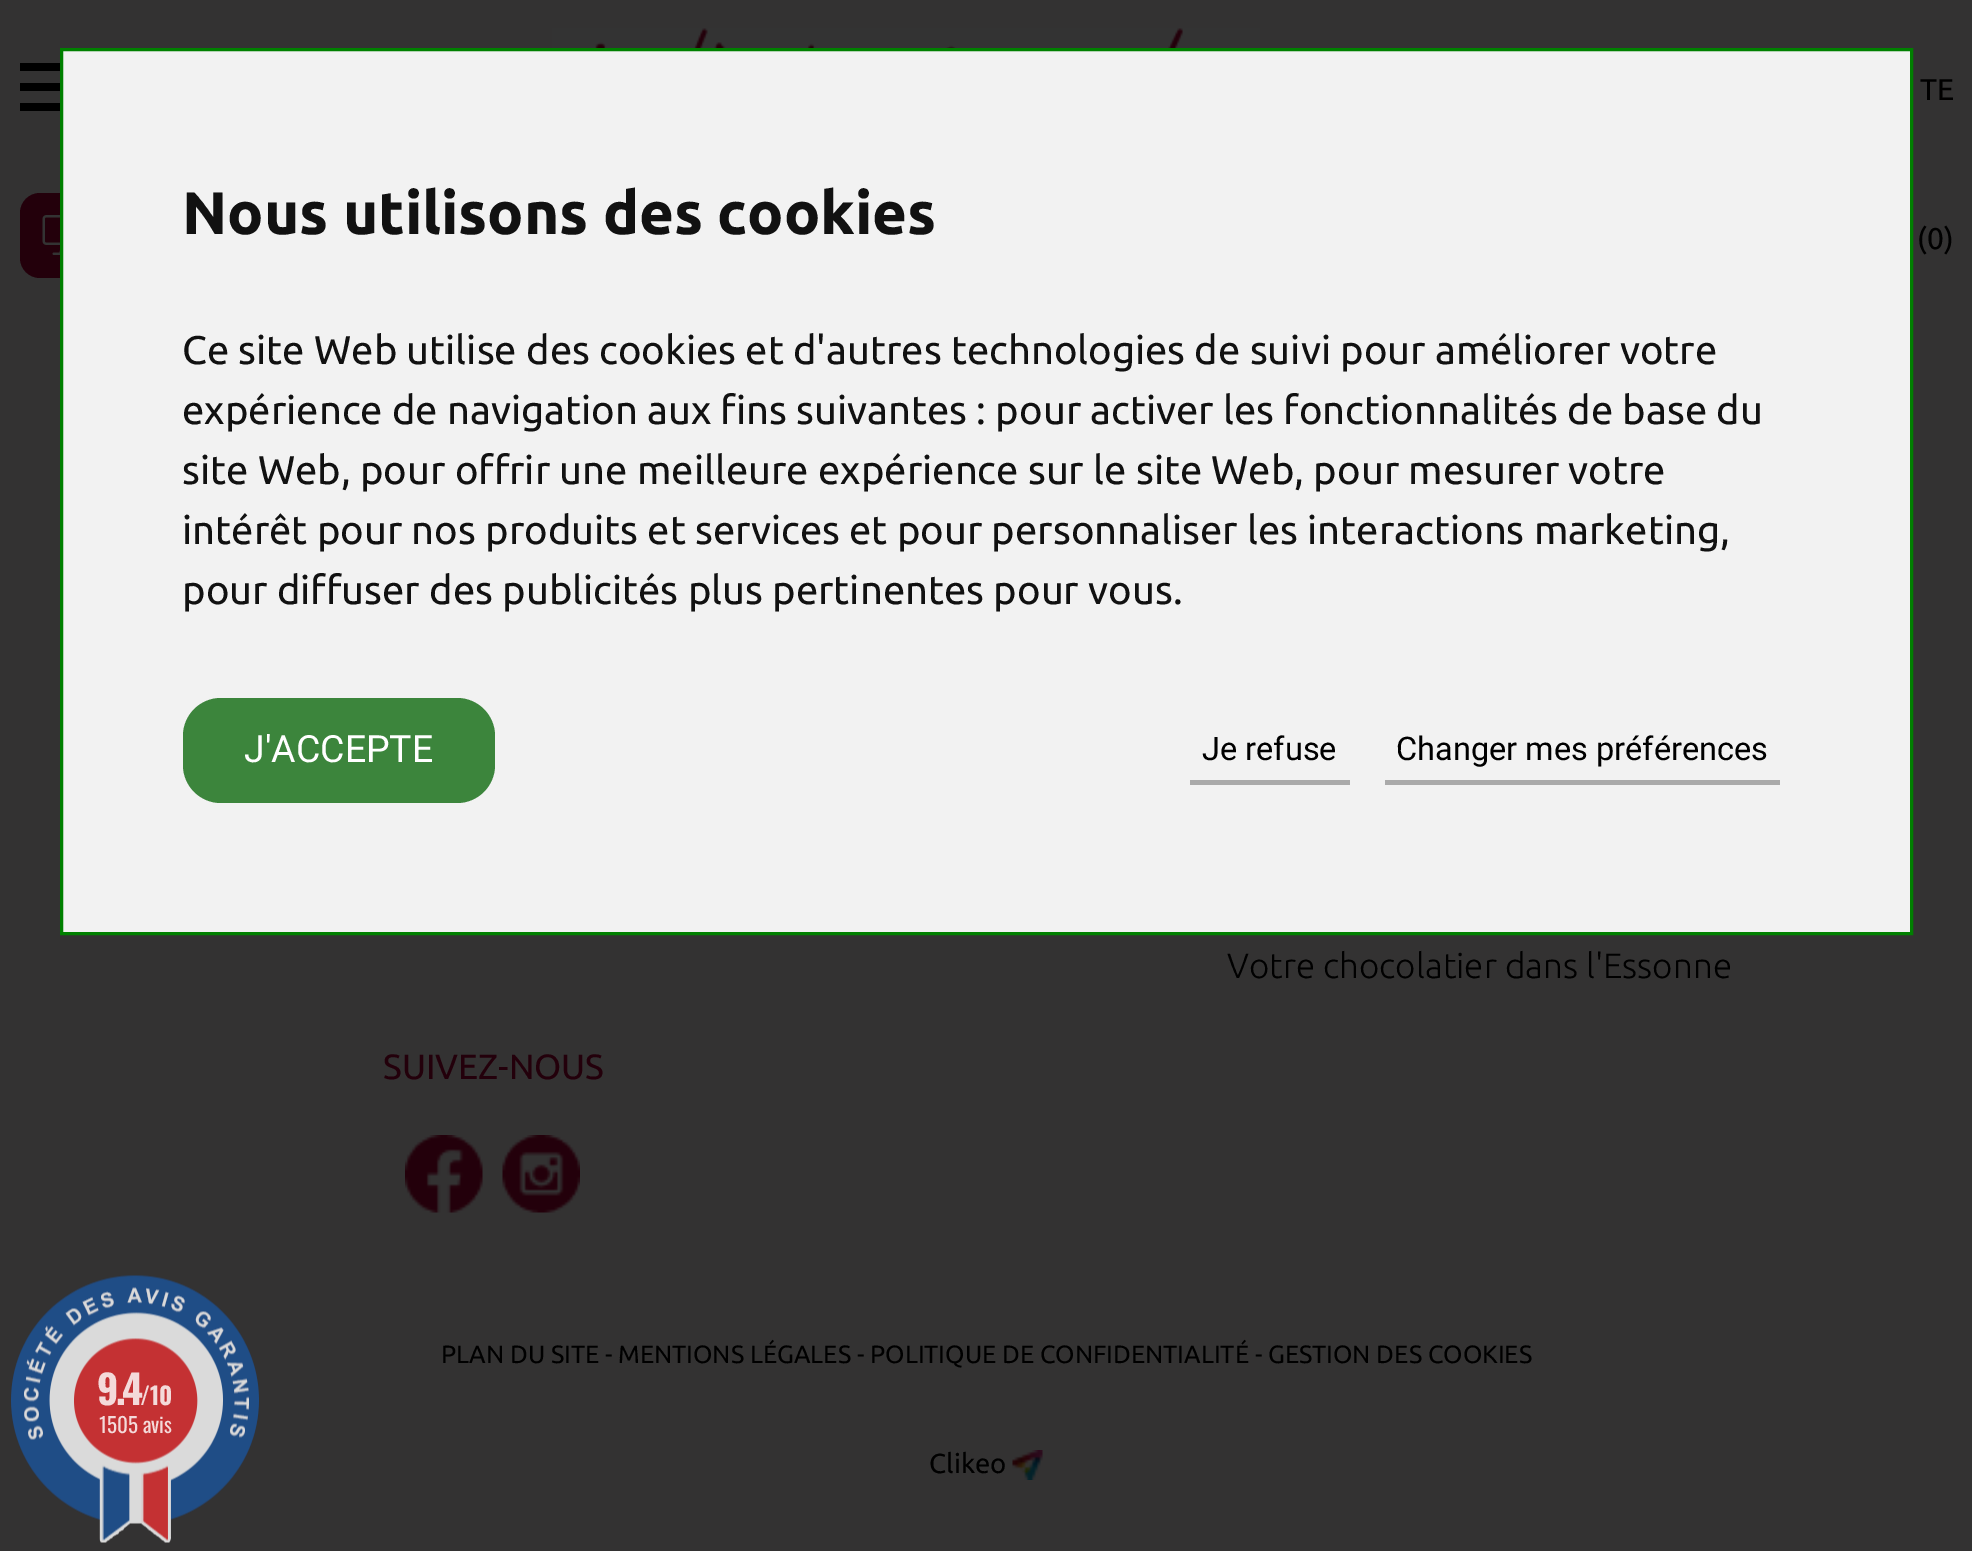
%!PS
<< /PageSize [1972 1551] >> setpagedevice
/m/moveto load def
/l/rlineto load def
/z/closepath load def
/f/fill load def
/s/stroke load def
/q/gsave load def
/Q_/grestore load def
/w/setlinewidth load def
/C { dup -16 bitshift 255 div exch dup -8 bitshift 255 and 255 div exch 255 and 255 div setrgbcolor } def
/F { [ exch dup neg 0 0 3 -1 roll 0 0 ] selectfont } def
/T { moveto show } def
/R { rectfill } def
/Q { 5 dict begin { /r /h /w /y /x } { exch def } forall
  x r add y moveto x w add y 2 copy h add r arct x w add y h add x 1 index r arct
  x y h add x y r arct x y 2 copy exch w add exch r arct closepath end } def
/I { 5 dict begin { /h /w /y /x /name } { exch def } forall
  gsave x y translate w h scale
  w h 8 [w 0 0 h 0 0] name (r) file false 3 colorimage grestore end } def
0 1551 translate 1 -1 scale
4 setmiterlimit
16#333232 C
0 0 1972 1551 R
(1.rgb) 11 1275 248 268 I
/Oswald-Bold 40 F
16#F4DADA C
97 1405 m -3 0 (9.4) ashow
/Oswald-Bold 24 F
(/10) 140 1405 T
/Oswald-Regular 21 F
(1505 avis) 99 1433 T
(2.rgb) 552 28 708 20 I
16#000000 C
20 83 40 8 R
20 63 40 8 R
20 103 40 8 R
/Ubuntu-Regular 30 F
(TE) 1920 100 T
16#23000B C
20 193 343 85 20 Q f
(3.rgb) 42 215 18 40 I
16#000000 C
(\(0\)) 1917 249 T
/Ubuntu-Light 35 F
(Votre chocolatier dans l'Essonne) 1227 978 T
/Ubuntu-Regular 35 F
16#23000B C
(SUIVEZ-NOUS) 383 1079 T
(4.rgb) 405 1135 78 78 I
(5.rgb) 502 1135 78 78 I
/Ubuntu-Regular 25 F
16#000000 C
(PLAN DU SITE - MENTIONS LÉGALES - POLITIQUE DE CONFIDENTIALITÉ - GESTION DES COOKIES) 441 1363 T
/Ubuntu-Regular 27.5 F
(Clikeo) 929 1473 T
(6.rgb) 1012 1450 31 30 I
16#F2F2F2 C
61.5 49.5 m 1850 0 l 0 884 l -1850 0 l z q f Q_
16#008000 C
3 w
s
/Ubuntu-Bold 60 F
16#111111 C
(Nous utilisons des cookies) 182 234 T
/Ubuntu-Regular 40 F
(Ce site Web utilise des cookies et d'autres technologies de suivi pour améliorer votre) 182 364 T
(expérience de navigation aux fins suivantes : pour activer les fonctionnalités de base du) 182 424 T
(site Web, pour offrir une meilleure expérience sur le site Web, pour mesurer votre) 182 484 T
(intérêt pour nos produits et services et pour personnaliser les interactions marketing,) 182 544 T
(pour diffuser des publicités plus pertinentes pour vous.) 182 604 T
16#3C853C C
183 698 312 105 38 Q f
/Roboto-Regular 37.5 F
16#FFFFFF C
(J'ACCEPTE) 244 762 T
/Roboto-Regular 32.5 F
16#000000 C
(Je refuse) 1202 760 T
16#AAAAAA C
1190 780 160 5 R
16#000000 C
(Changer mes préférences) 1396 760 T
16#AAAAAA C
1385 780 395 5 R
showpage
